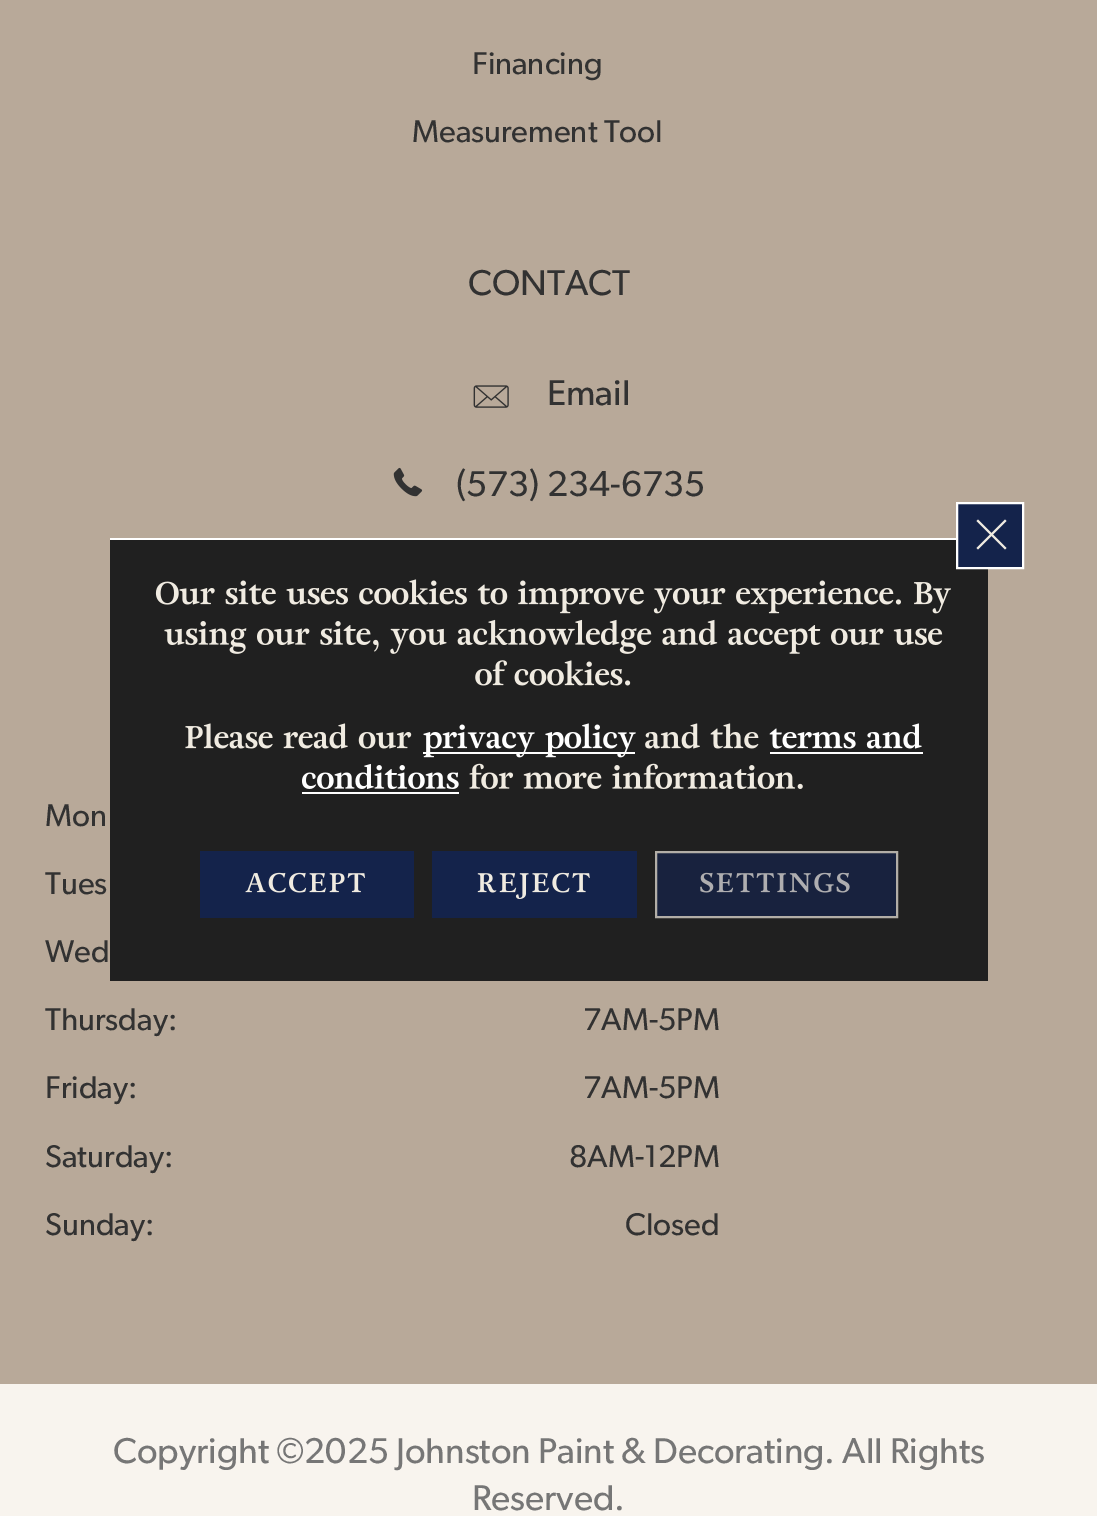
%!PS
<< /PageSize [1097 1516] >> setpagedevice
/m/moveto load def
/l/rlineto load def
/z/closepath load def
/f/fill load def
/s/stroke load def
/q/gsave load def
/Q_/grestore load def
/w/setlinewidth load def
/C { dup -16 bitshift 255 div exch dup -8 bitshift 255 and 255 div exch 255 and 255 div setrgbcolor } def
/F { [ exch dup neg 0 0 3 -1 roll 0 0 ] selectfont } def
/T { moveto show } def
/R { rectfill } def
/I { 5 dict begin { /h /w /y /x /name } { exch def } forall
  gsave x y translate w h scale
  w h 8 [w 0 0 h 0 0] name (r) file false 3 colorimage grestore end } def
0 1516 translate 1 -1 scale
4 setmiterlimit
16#F8F4EE C
0 0 1097 1516 R
16#B8A999 C
0 0 1097 1384 R
/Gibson-Regular 31.5 F
16#323232 C
(Financing) 472 74 T
(Measurement Tool) 412 142 T
/Gibson-Regular 36 F
(CONTACT) 468 295 T
(1.rgb) 473 385 36 23 I
(Email) 547 405 T
(2.rgb) 393 467 30 30 I
(\(573\) 234-6735) 456 496 T
/Gibson-Regular 31.5 F
(Mon) 45 826 T
(Tues) 45 894 T
(Wed) 45 962 T
(Thursday:) 45 1030 T
(7AM-5PM) 583 1030 T
(Friday:) 45 1098 T
(7AM-5PM) 583 1098 T
(Saturday:) 45 1167 T
(8AM-12PM) 569 1167 T
(Sunday:) 45 1235 T
(Closed) 625 1235 T
/Gibson-Regular 36 F
16#767676 C
(Copyright ©2025 Johnston Paint & Decorating. All Rights) 113 1463 T
(Reserved.) 472 1510 T
16#202020 C
110 540 878 441 R
16#FFFFFF C
110 538 846 2 R
16#14234B C
957 503 m 66 0 l 0 65 l -66 0 l z q f Q_
16#FFFFFF C
2 w
s
16#F0EBE1 C
1005 519.5 m 1.5 1.5 l -28.5 28.5 l -1.5 -1.5 l z f
976.5 521 m 1.5 -1.5 l 28.5 28.5 l -1.5 1.5 l z f
16#14234B C
200 851 214 67 R
(3.rgb) 245 872 120 21 I
432 851 205 67 R
(4.rgb) 477 872 113 27 I
16#18223E C
656 852 m 241 0 l 0 65 l -241 0 l z q f Q_
16#B2AEA7 C
s
(5.rgb) 700 872 150 21 I
(6.rgb) 155 579 796 35 I
(7.rgb) 164 619 779 35 I
(8.rgb) 475 660 156 26 I
(9.rgb) 185 723 227 26 I
16#FFFFFF C
423 752 212 2 R
(10.rgb) 423 723 213 35 I
(11.rgb) 645 723 114 26 I
(12.rgb) 769 723 153 26 I
770 752 153 2 R
(13.rgb) 302 763 157 26 I
(14.rgb) 469 763 334 26 I
302 792 157 2 R
showpage
